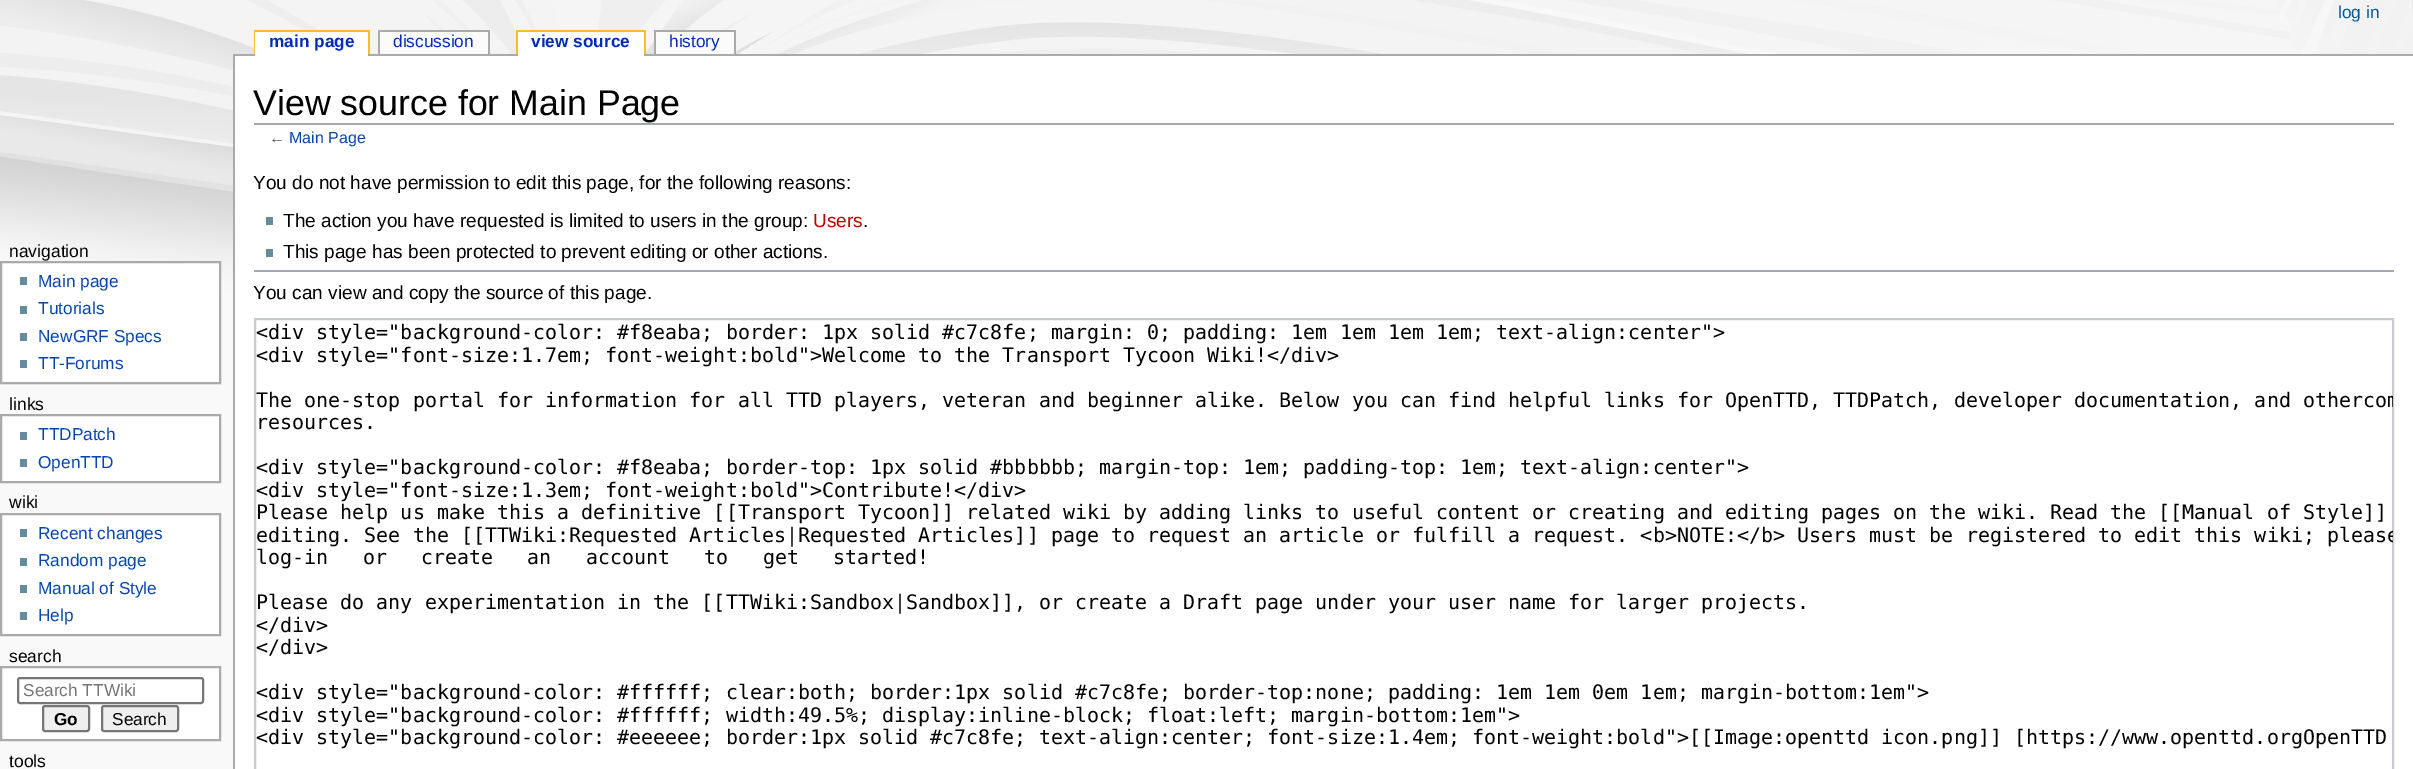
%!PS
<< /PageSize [2413 769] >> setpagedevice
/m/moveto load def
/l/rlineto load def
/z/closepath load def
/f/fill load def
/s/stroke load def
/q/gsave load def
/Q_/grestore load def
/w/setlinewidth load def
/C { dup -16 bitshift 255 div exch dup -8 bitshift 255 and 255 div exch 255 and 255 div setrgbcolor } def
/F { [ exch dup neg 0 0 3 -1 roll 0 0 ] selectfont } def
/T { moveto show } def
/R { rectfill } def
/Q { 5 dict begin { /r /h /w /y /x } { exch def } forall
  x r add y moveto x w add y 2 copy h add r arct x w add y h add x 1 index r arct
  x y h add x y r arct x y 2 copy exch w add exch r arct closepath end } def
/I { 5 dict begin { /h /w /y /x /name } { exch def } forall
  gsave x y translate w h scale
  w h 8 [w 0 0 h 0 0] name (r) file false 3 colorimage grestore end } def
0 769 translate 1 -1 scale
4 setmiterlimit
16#F9F9F9 C
0 0 2413 769 R
(1.rgb) 0 0 2413 315 I
/LiberationSans-Regular 17.25 F
16#005896 C
(log in) 2338 18 T
16#FABD23 C
254 30 115 2 R
254 30 2 24 R
16#AAAAAA C
233 54 2180 2 R
16#FFFFFF C
255 32 113 24 R
/LiberationSans-Bold 17.25 F
16#002BB8 C
(main page) 269 47 T
16#FABD23 C
368 30 2 24 R
16#FBFBFB C
380 32 108 22 R
/LiberationSans-Regular 17.25 F
16#002BB8 C
(discussion) 393 47 T
16#AAAAAA C
378 30 111 2 R
488 30 2 24 R
378 30 2 24 R
16#FFFFFF C
518 32 126 24 R
/LiberationSans-Bold 17.25 F
16#002BB8 C
(view source) 531 47 T
16#FABD23 C
516 30 129 2 R
644 30 2 24 R
516 30 2 24 R
16#FBFBFB C
656 32 78 22 R
/LiberationSans-Regular 17.25 F
16#002BB8 C
(history) 669 47 T
16#AAAAAA C
654 30 81 2 R
734 30 2 24 R
654 30 2 24 R
/LiberationSans-Regular 17.5 F
16#000000 C
(navigation) 9 257 T
16#FFFFFF C
1 262 m 219 0 l 0 121 l -219 0 l z q f Q_
16#AAAAAA C
2 w
s
16#638C9C C
20 277 7 8 R
/LiberationSans-Regular 17.25 F
16#0645AD C
(Main page) 38 287 T
16#638C9C C
20 306 7 8 R
16#0645AD C
(Tutorials) 38 314 T
16#638C9C C
20 333 7 8 R
16#0645AD C
(NewGRF Specs) 38 342 T
16#638C9C C
20 360 7 8 R
16#0645AD C
(TT-Forums) 38 369 T
/LiberationSans-Regular 17.5 F
16#000000 C
(links) 9 410 T
16#FFFFFF C
1 415 m 219 0 l 0 67 l -219 0 l z q f Q_
16#AAAAAA C
s
16#638C9C C
20 432 7 8 R
/LiberationSans-Regular 17.25 F
16#0645AD C
(TTDPatch) 38 440 T
16#638C9C C
20 459 7 8 R
16#0645AD C
(OpenTTD) 38 468 T
/LiberationSans-Regular 17.5 F
16#000000 C
(wiki) 9 508 T
16#FFFFFF C
1 514 m 219 0 l 0 121 l -219 0 l z q f Q_
16#AAAAAA C
s
16#638C9C C
20 529 7 8 R
/LiberationSans-Regular 17.25 F
16#0645AD C
(Recent changes) 38 539 T
16#638C9C C
20 558 7 8 R
16#0645AD C
(Random page) 38 566 T
16#638C9C C
20 585 7 8 R
16#0645AD C
(Manual of Style) 38 594 T
16#638C9C C
20 612 7 8 R
16#0645AD C
(Help) 38 621 T
/LiberationSans-Regular 17.5 F
16#000000 C
(search) 9 662 T
16#FFFFFF C
1 667 m 219 0 l 0 73 l -219 0 l z q f Q_
16#AAAAAA C
s
16#767676 C
18 678 185 25 2 Q s
/LiberationSans-Regular 17.25 F
16#757575 C
(Search TTWiki) 23 696 T
16#EFEFEF C
43 706 46 25 2 Q q f Q_
16#767676 C
s
/LiberationSans-Bold 17.25 F
16#000000 C
(Go) 54 725 T
16#EFEFEF C
102 706 76 25 2 Q q f Q_
16#767676 C
s
/LiberationSans-Regular 17.25 F
16#000000 C
(Search) 112 725 T
/LiberationSans-Regular 17.5 F
(tools) 9 767 T
16#FFFFFF C
235 56 2178 713 R
16#AAAAAA C
233 54 2 715 R
16#A2A9B1 C
254 123 2140 2 R
/LiberationSans-Regular 35.75 F
16#000000 C
(View source for Main Page) 253 115 T
/LiberationSans-Regular 16 F
16#54595D C
(←) 269 143 T
16#0645AD C
(Main Page) 289 143 T
/LiberationSans-Regular 19.05 F
16#000000 C
(You do not have permission to edit this page, for the following reasons:) 253 189 T
16#638C9C C
266 217 7 8 R
16#000000 C
(The action you have requested is limited to users in the group:) 283 227 T
16#BA0000 C
(Users) 813 227 T
16#000000 C
(.) 863 227 T
16#638C9C C
266 249 7 8 R
16#000000 C
(This page has been protected to prevent editing or other actions.) 283 258 T
16#A2A9B1 C
254 270 2140 2 R
16#000000 C
(You can view and copy the source of this page.) 253 299 T
16#C8CCD1 C
255 319 2138 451 rectstroke
/DejaVuSansMono-Regular 20 F
16#000000 C
(<div style="background-color: #f8eaba; border: 1px solid #c7c8fe; margin: 0; padding: 1em 1em 1em 1em; text-align:center">) 256 339 T
(<div style="font-size:1.7em; font-weight:bold">Welcome to the Transport Tycoon Wiki!</div>) 256 362 T
(The one-stop portal for information for all TTD players, veteran and beginner alike. Below you can find helpful links for OpenTTD, TTDPatch, developer documentation, and other) 256 407 T
q
255 320 2138 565 rectclip
(com) 2363 407 T
Q_
(resources.) 256 429 T
(<div style="background-color: #f8eaba; border-top: 1px solid #bbbbbb; margin-top: 1em; padding-top: 1em; text-align:center">) 256 474 T
(<div style="font-size:1.3em; font-weight:bold">Contribute!</div>) 256 497 T
(Please help us make this a definitive [[Transport Tycoon]] related wiki by adding links to useful content or creating and editing pages on the wiki. Read the [[Manual of Style]]) 256 519 T
(editing. See the [[TTWiki:Requested Articles|Requested Articles]] page to request an article or fulfill a request. <b>NOTE:</b> Users must be registered to edit this wiki;) 256 542 T
q
255 320 2138 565 rectclip
(please) 2327 542 T
Q_
256 564 m 22.25 0 32 (log-in or create an account to get started!) widthshow
(Please do any experimentation in the [[TTWiki:Sandbox|Sandbox]], or create a Draft page under your user name for larger projects.) 256 609 T
(</div>) 256 632 T
(</div>) 256 654 T
(<div style="background-color: #ffffff; clear:both; border:1px solid #c7c8fe; border-top:none; padding: 1em 1em 0em 1em; margin-bottom:1em">) 256 699 T
(<div style="background-color: #ffffff; width:49.5%; display:inline-block; float:left; margin-bottom:1em">) 256 722 T
(<div style="background-color: #eeeeee; border:1px solid #c7c8fe; text-align:center; font-size:1.4em; font-weight:bold">[[Image:openttd icon.png]] [https://www.openttd.orgOpenTTD) 256 744 T
showpage
